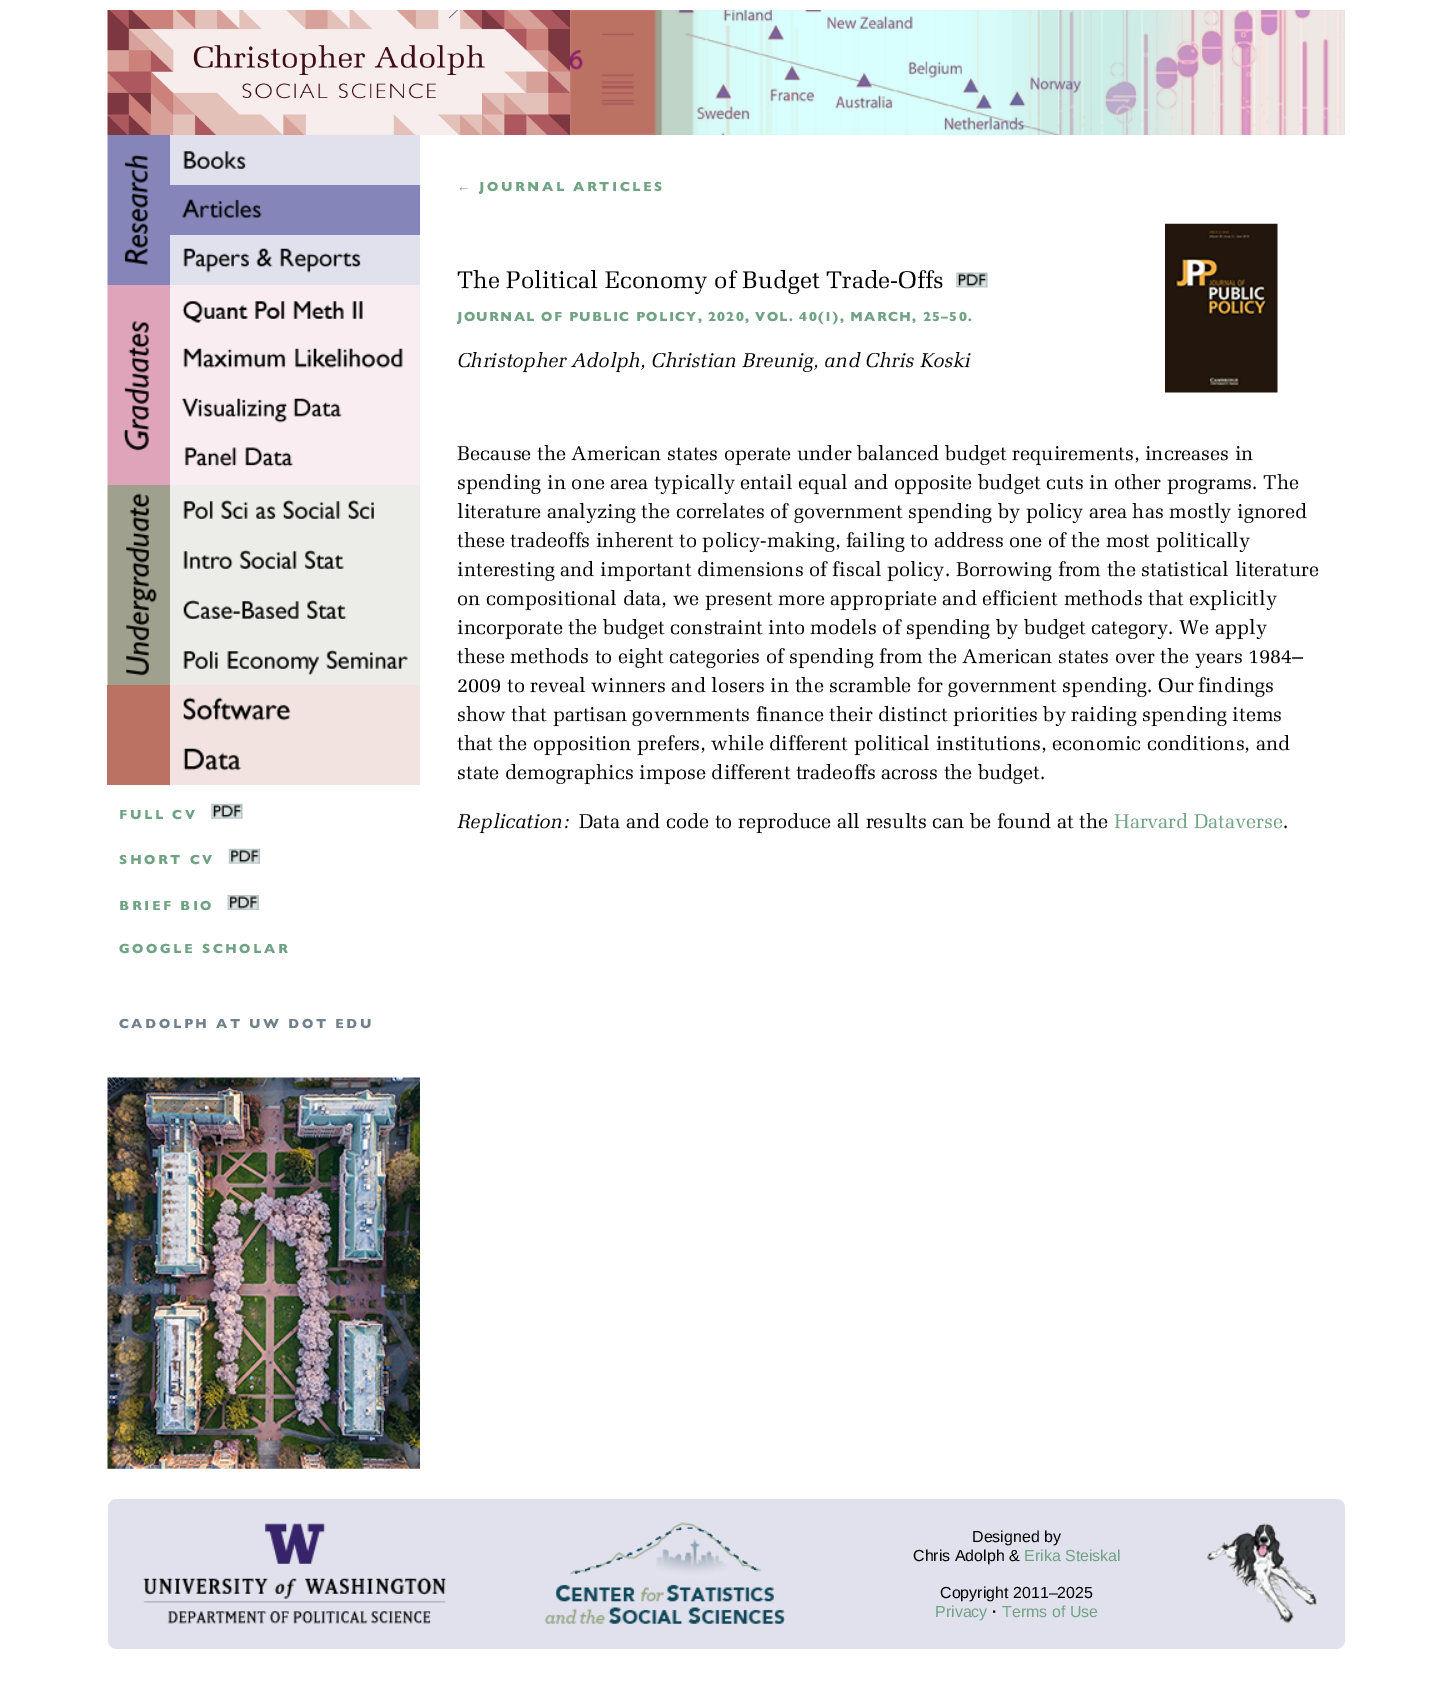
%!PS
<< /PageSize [1451 1690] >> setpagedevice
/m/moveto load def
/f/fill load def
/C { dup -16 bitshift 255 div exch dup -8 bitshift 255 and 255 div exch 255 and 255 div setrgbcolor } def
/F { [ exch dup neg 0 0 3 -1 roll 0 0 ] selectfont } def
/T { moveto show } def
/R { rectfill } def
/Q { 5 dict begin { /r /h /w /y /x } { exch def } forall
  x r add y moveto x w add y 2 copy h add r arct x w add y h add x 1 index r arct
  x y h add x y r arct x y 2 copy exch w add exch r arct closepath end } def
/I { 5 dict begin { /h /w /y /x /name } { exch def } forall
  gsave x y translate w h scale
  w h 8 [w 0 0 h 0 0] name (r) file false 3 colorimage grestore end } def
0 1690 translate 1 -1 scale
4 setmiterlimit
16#FFFFFF C
0 0 1451 1690 R
(1.rgb) 107 10 463 125 I
(2.rgb) 570 10 775 125 I
/LiberationSans-Regular 13.4 F
16#70A284 C
457 191 m 2.5 0 (←) ashow
/GillSans-Bold 13.4 F
479 191 m 2.5 0 (JOURNAL ARTICLES) ashow
/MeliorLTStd-Regular 24 F
16#000000 C
(The Political Economy of Budget Trade-Offs) 457 288 T
(3.rgb) 956 272 32 16 I
/GillSans-Bold 13.4 F
16#70A284 C
457 321 m 1.25 0 (JOURNAL OF PUBLIC POLICY, 2020, VOL. 40\(1\), MARCH, 25–50.) ashow
/MeliorLTStd-Italic 20 F
16#000000 C
(Christopher Adolph, Christian Breunig, and Chris Koski) 457 367 T
(4.rgb) 1165 223 113 170 I
/MeliorLTStd-Regular 20 F
(Because the American states operate under balanced budget requirements, increases in) 457 460 T
(spending in one area typically entail equal and opposite budget cuts in other programs. The) 457 489 T
(literature analyzing the correlates of government spending by policy area has mostly ignored) 457 518 T
(these tradeoffs inherent to policy-making, failing to address one of the most politically) 457 547 T
(interesting and important dimensions of fiscal policy. Borrowing from the statistical literature) 457 576 T
(on compositional data, we present more appropriate and efficient methods that explicitly) 457 605 T
(incorporate the budget constraint into models of spending by budget category. We apply) 457 634 T
(these methods to eight categories of spending from the American states over the years 1984–) 457 663 T
(2009 to reveal winners and losers in the scramble for government spending.) 457 692 T
1158 692 m -1 0 32 (Our findings) widthshow
(show that partisan governments finance their distinct priorities by raiding spending items) 457 721 T
(that the opposition prefers, while different political institutions, economic conditions, and) 457 750 T
(state demographics impose different tradeoffs across the budget.) 457 779 T
/MeliorLTStd-Italic 20 F
(Replication:) 457 828 T
/MeliorLTStd-Regular 20 F
(Data and code to reproduce all results can be found at the) 579 828 T
16#70A284 C
(Harvard Dataverse) 1114 828 T
16#000000 C
(.) 1283 828 T
(5.rgb) 107 135 63 150 I
(6.rgb) 107 285 63 200 I
(7.rgb) 107 485 63 200 I
16#BC7263 C
107 685 63 100 R
(8.rgb) 170 135 250 50 I
(9.rgb) 170 185 250 50 I
(10.rgb) 170 235 250 50 I
(11.rgb) 170 285 250 50 I
(12.rgb) 170 335 250 50 I
(13.rgb) 170 385 250 50 I
(14.rgb) 170 435 250 50 I
(15.rgb) 170 485 250 50 I
(16.rgb) 170 535 250 50 I
(17.rgb) 170 585 250 50 I
(18.rgb) 170 635 250 50 I
(19.rgb) 170 685 250 50 I
(20.rgb) 170 735 250 50 I
/GillSans-Bold 13.4 F
16#70A284 C
119 819 m 2.5 0 (FULL CV) ashow
(21.rgb) 211 803 32 16 I
119 864 m 2.5 0 (SHORT CV) ashow
(22.rgb) 228 848 32 16 I
119 910 m 2.5 0 (BRIEF BIO) ashow
(23.rgb) 227 895 32 15 I
119 953 m 2.5 0 (GOOGLE SCHOLAR) ashow
16#71818B C
119 1028 m 2.5 0 (CADOLPH AT UW DOT EDU) ashow
(24.rgb) 107 1077 313 392 I
16#E1E1EE C
108 1499 1237 150 9 Q f
(25.rgb) 143 1523 304 101 I
(26.rgb) 544 1522 241 102 I
/LiberationSans-Regular 16 F
16#000000 C
(Designed by) 972 1542 T
(Chris Adolph &) 913 1561 T
16#70A284 C
(Erika Steiskal) 1024 1561 T
16#000000 C
(Copyright 2011–2025) 940 1598 T
16#70A284 C
(Privacy) 935 1617 T
/LiberationSans-Bold 16 F
16#000000 C
(·) 992 1617 T
/LiberationSans-Regular 16 F
16#70A284 C
(Terms of Use) 1002 1617 T
(27.rgb) 1206 1523 112 101 I
showpage
